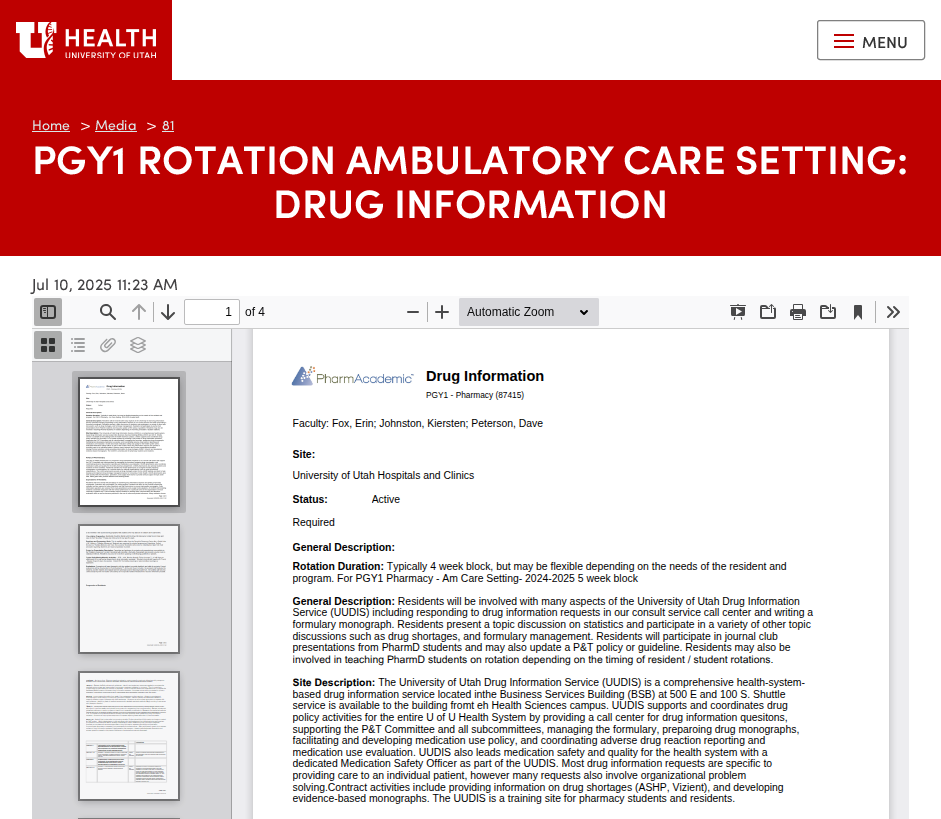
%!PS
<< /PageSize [941 819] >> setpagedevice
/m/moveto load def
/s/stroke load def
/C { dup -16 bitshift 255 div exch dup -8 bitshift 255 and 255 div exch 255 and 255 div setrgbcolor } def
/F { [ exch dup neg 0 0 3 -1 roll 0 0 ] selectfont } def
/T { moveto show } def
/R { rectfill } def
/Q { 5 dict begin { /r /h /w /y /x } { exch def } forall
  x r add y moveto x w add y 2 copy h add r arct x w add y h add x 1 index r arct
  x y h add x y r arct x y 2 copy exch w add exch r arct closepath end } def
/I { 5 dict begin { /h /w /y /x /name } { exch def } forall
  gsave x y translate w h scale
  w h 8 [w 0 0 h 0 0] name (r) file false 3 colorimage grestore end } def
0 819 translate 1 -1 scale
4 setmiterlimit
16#FFFFFF C
0 0 941 819 R
16#BE0000 C
0 0 172 80 R
(1.rgb) 16 22 140 36 I
16#808080 C
817.5 20.5 107 39 2.5 Q s
16#BE0000 C
834 34 20 2 R
834 40 20 2 R
834 46 20 2 R
/Sofia-Medium 16 F
16#333333 C
(MENU) 862 48 T
16#BE0000 C
0 80 941 176 R
/Sofia-Regular 14 F
16#DCE7E8 C
(Home) 32 130 T
32 131 38 1 R
/Sofia-Light 17 F
16#FFFFFF C
80 131 m -5 0 (>) ashow
/Sofia-Regular 14 F
16#DCE7E8 C
(Media) 95 130 T
95 131 42 1 R
/Sofia-Light 17 F
16#FFFFFF C
146 131 m -5 0 (>) ashow
/Sofia-Regular 14 F
16#DCE7E8 C
(81) 162 130 T
162 131 12 1 R
/Sofia-SemiBold 40 F
16#FFFFFF C
(PGY1 ROTATION AMBULATORY CARE SETTING:) 32 174 T
(DRUG INFORMATION) 273 218 T
/Sofia-Regular 16 F
16#414042 C
(Jul 10, 2025 11:23 AM) 32 290 T
(2.rgb) 32 296 877 523 I
showpage
